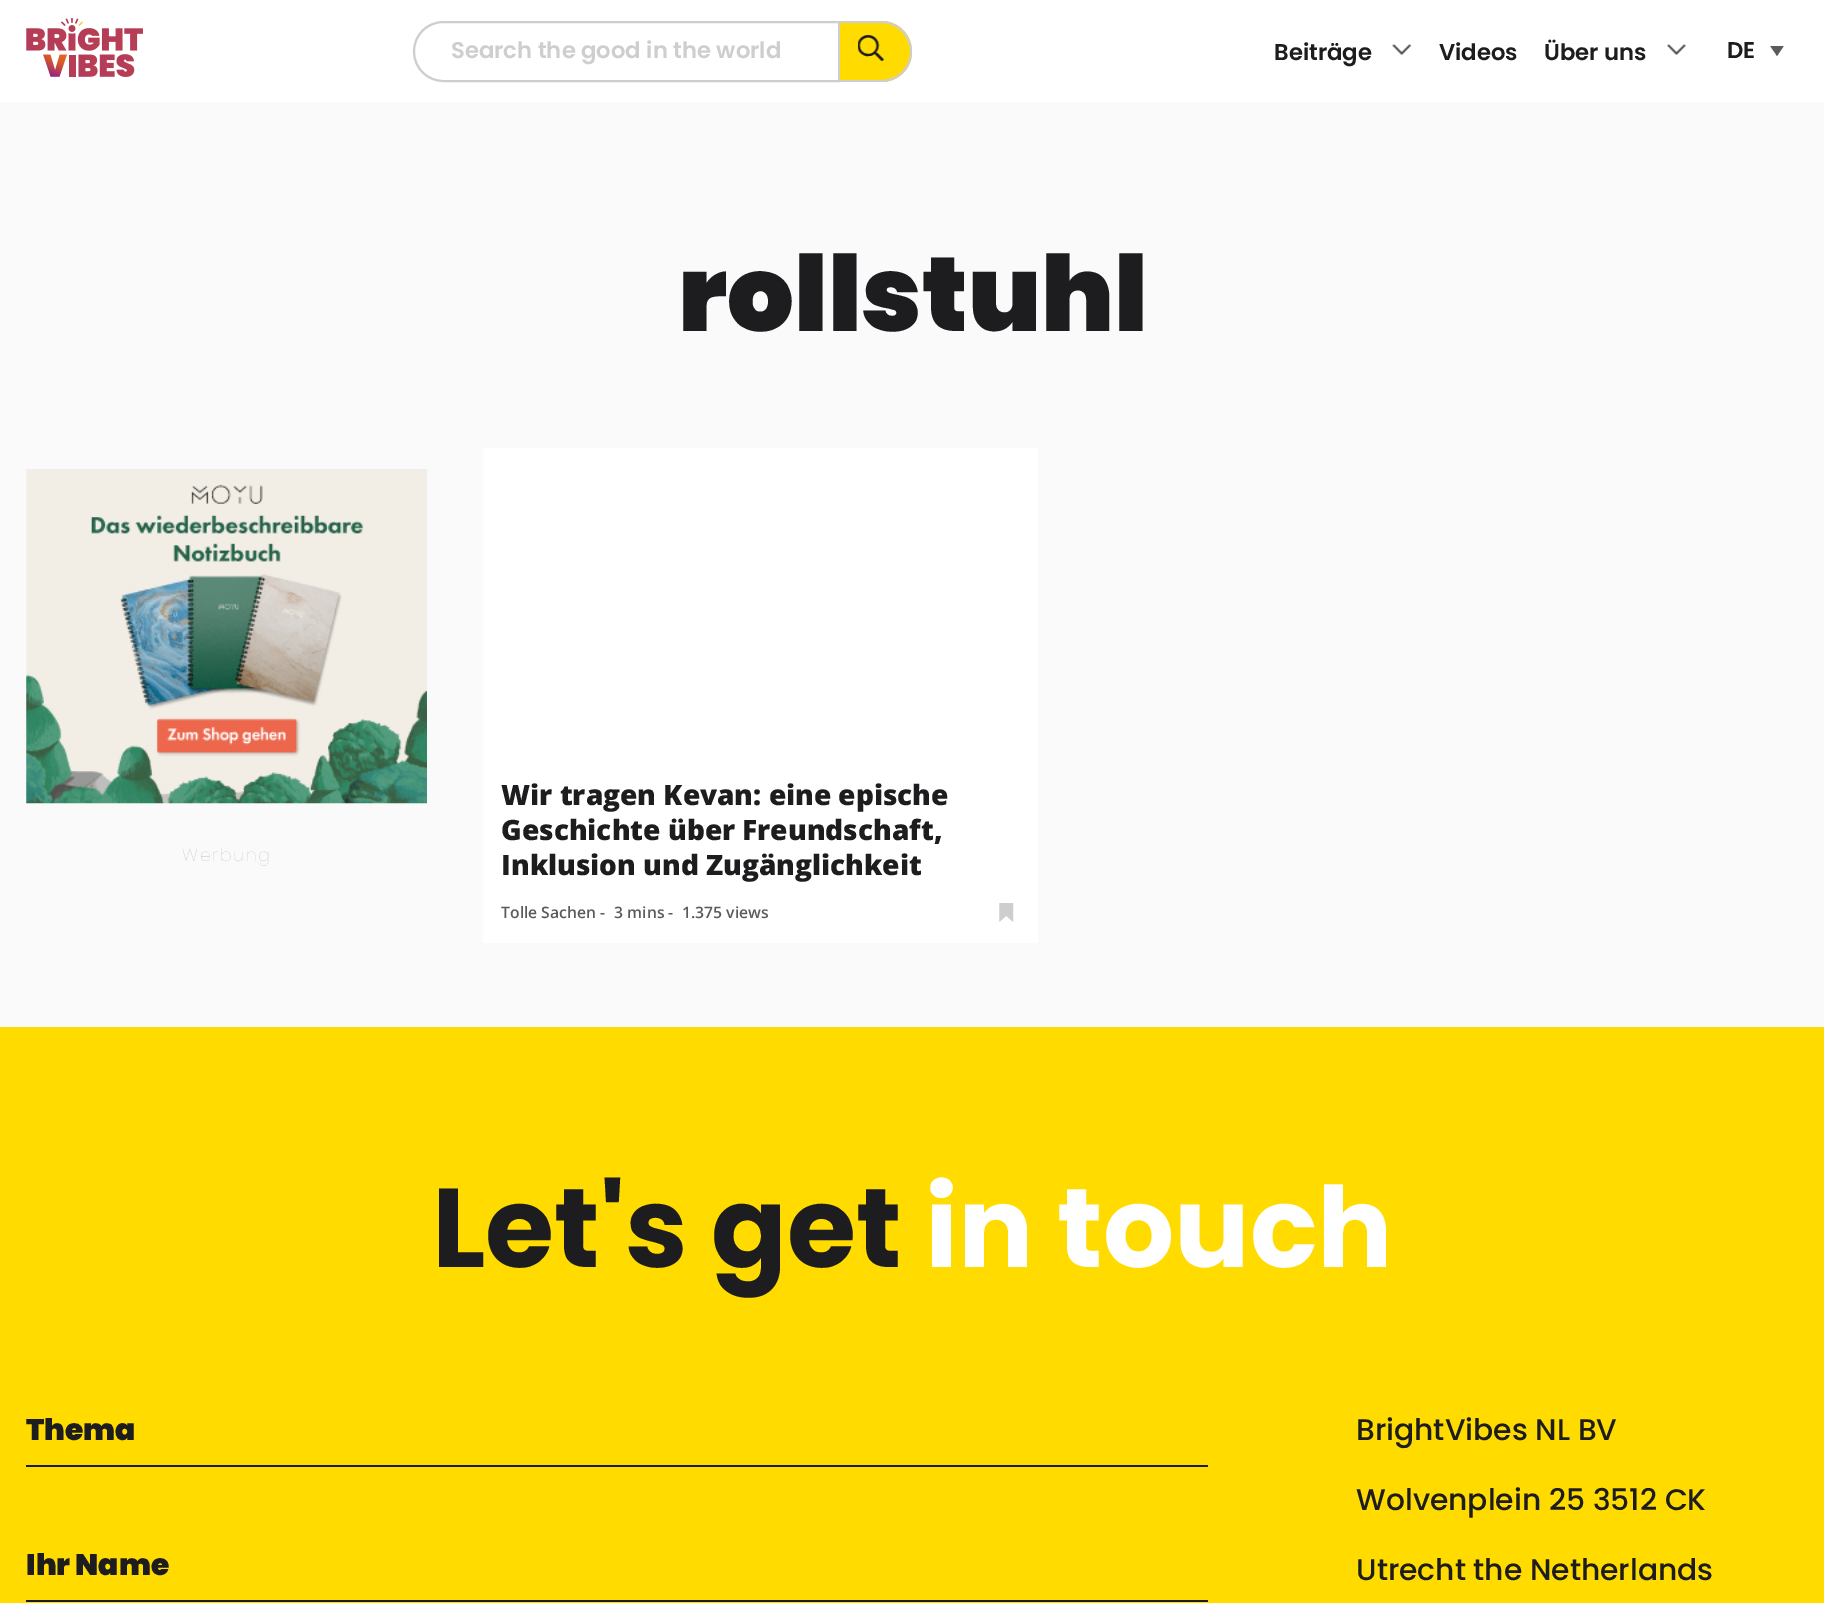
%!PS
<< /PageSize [1824 1603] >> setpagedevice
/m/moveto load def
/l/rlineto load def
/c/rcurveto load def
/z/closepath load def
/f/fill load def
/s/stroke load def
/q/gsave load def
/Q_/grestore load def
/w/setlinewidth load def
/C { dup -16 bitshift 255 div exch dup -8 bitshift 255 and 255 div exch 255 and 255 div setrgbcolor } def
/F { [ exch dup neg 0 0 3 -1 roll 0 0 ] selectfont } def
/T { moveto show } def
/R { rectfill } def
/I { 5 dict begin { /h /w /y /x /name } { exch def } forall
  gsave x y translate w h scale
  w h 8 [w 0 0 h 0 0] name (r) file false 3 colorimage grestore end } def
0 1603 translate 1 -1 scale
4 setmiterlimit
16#FAFAFA C
0 0 1824 1603 R
16#FFFFFF C
0 0 1824 102 R
(1.rgb) 26 18 117 59 I
16#CECECE C
2 w
443.5 22 m 395.5 0 l 0 59 l -395.5 0 l -16.5 0 -29.5 -13 -29.5 -29.5 c 0 -16.5 13 -29.5 29.5 -29.5 c z s
/Poppins-SemiBold 22.75 F
(Search the good in the world) 451 58 T
16#FFDB00 C
840 21 m 41.5 0 l 17 0 30.5 13.5 30.5 30.5 c 0 17 -13.5 30.5 -30.5 30.5 c -41.5 0 l z f
16#CECECE C
840 21 m 41 0 l 17 0 31 14 31 31 c 0 17 -14 30 -31 30 c -41 0 l z 840 23 m 41 0 l 16 0 29 13 29 29 c 0 16 -13 28 -29 28 c -41 0 l z eofill
(2.rgb) 858 35 27 26 I
16#1D1D1F C
(Beiträge) 1274 60 T
(3.rgb) 1392 44 20 11 I
(Videos) 1439 60 T
(Über uns) 1544 60 T
(4.rgb) 1667 44 19 11 I
q
1769 46 16 10 rectclip
16#5B5B5B C
1770 45.5 m 14 0 l -7 10.5 l z f
Q_
(DE) 1727 58 T
/Poppins-Black 105 F
(rollstuhl) 678 331 T
(5.rgb) 26 469 401 335 I
/Poppins-ExtraLight 17.5 F
16#C3C3C3 C
182 861 m 1.75 0 (Werbung) ashow
16#FFFFFF C
483 448 555 495 R
/OpenSans-ExtraBold 28 F
16#1D1D1F C
(Wir tragen Kevan: eine epische) 501 805 T
(Geschichte über Freundschaft,) 501 840 T
(Inklusion und Zugänglichkeit) 501 875 T
/OpenSans-SemiBold 15.75 F
16#5B5B5B C
(Tolle Sachen -) 501 918 T
(3 mins -) 614 918 T
(1.375 views) 682 918 T
(6.rgb) 999 903 15 19 I
16#FFDB00 C
0 1027 1824 576 R
/Poppins-Bold 112 F
16#1D1D1F C
(Let's get) 432 1267 T
16#FFFFFF C
(in touch) 925 1267 T
16#1D1D1F C
26 1465 1182 2 R
/Poppins-Black 29.75 F
(Thema) 26 1440 T
26 1600 1182 2 R
(Ihr Name) 26 1575 T
/Poppins-Medium 29.75 F
(BrightVibes NL BV) 1356 1440 T
(Wolvenplein 25 3512 CK) 1356 1510 T
(Utrecht the Netherlands) 1356 1580 T
showpage
